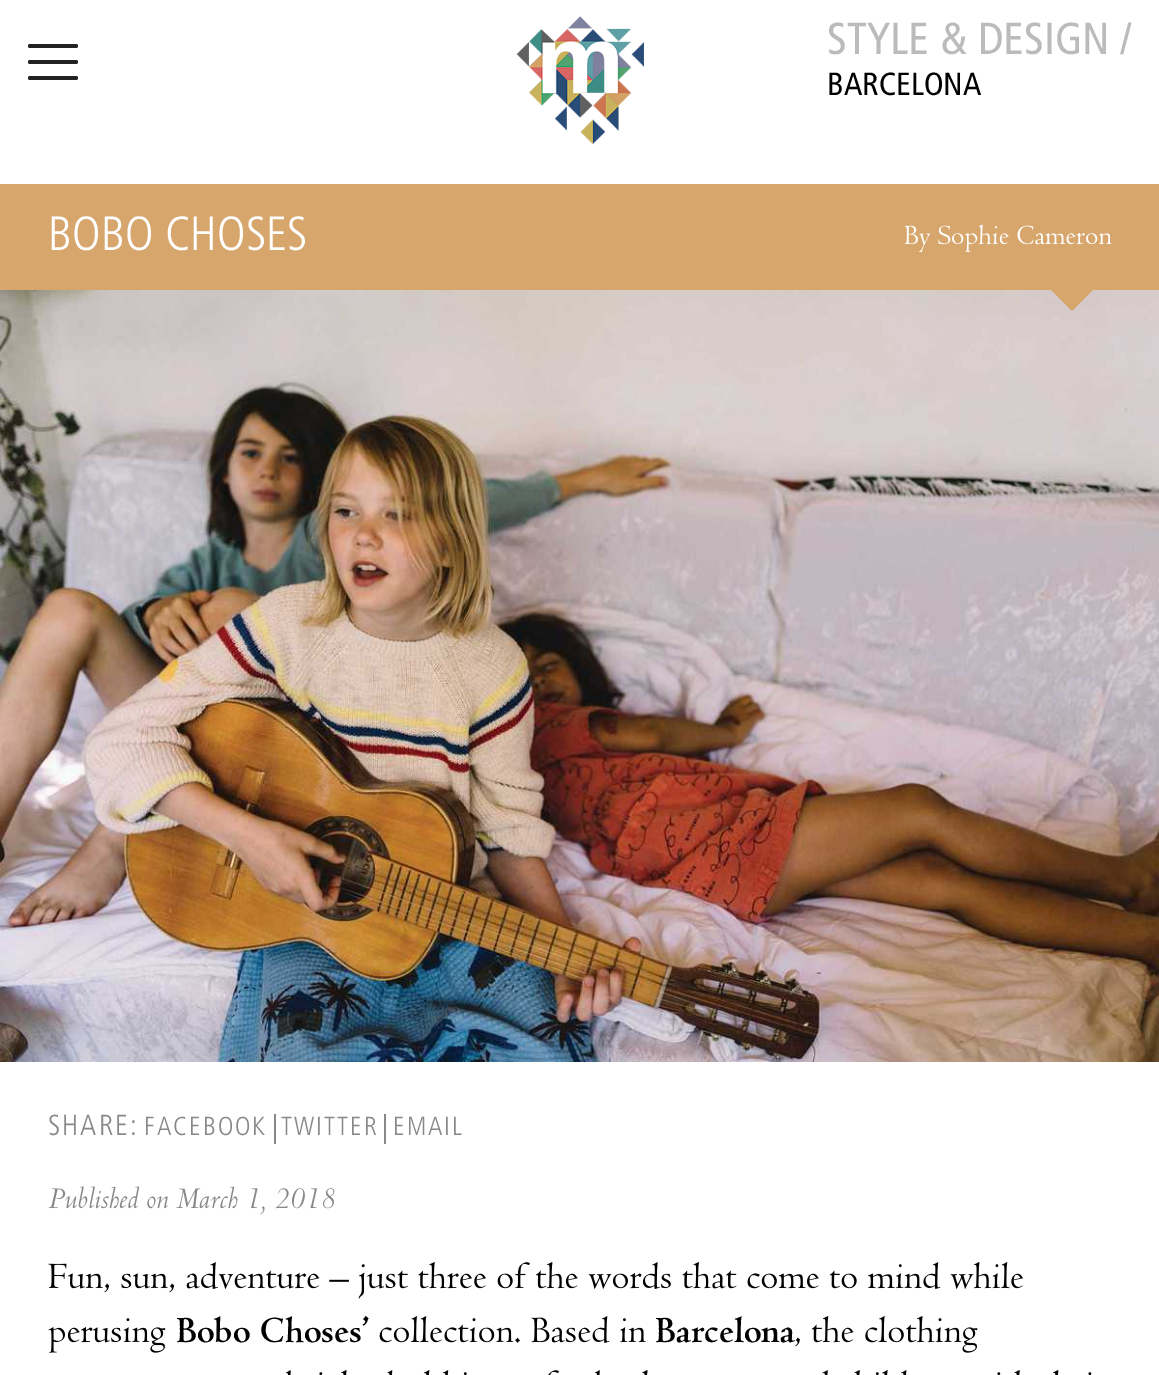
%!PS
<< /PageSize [1159 1375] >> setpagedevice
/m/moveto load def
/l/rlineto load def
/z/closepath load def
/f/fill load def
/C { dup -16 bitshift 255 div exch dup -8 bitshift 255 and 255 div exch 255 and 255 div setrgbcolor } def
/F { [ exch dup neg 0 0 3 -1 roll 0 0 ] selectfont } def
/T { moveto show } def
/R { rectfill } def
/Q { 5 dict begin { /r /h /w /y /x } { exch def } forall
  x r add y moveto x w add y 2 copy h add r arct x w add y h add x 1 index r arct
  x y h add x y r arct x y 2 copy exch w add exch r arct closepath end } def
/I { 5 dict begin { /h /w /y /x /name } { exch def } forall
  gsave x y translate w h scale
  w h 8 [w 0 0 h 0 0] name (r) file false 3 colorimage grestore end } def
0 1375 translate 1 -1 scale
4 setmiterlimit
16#FFFFFF C
0 0 1159 1375 R
16#222222 C
28 44 50 4 2 Q f
28 60 50 4 2 Q f
28 76 50 4 2 Q f
(1.rgb) 516 16 128 128 I
/Frutiger-Regular 44.75 F
16#BBBBBB C
(STYLE & DESIGN /) 827 54 T
/Frutiger-Regular 32 F
16#000000 C
(BARCELONA) 827 95 T
16#D7A66C C
0 184 1159 106 R
/Frutiger-Light 48 F
16#FFFFFF C
(BOBO CHOSES) 48 250 T
(2.rgb) 904 224 208 28 I
(3.rgb) 0 290 1159 772 I
16#D7A66C C
1048 287 m 48 0 l -24 24 l z f
/Frutiger-Light 29 F
16#888888 C
48 1135 m 2 0 (SHARE:) ashow
/Frutiger-Light 26 F
144 1135 m 2 0 (FACEBOOK) ashow
281 1135 m 2 0 (TWITTER) ashow
274 1114 2 30 R
393 1135 m 2 0 (EMAIL) ashow
384 1114 2 30 R
(4.rgb) 48 1186 287 29 I
(5.rgb) 48 1262 976 37 I
(6.rgb) 48 1318 118 35 I
/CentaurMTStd-Bold 38.5 F
16#000000 C
(Bobo Choses’) 176 1342 T
(7.rgb) 379 1316 267 27 I
(Barcelona) 655 1342 T
(8.rgb) 795 1316 183 37 I
(9.rgb) 285 1370 807 5 I
showpage
